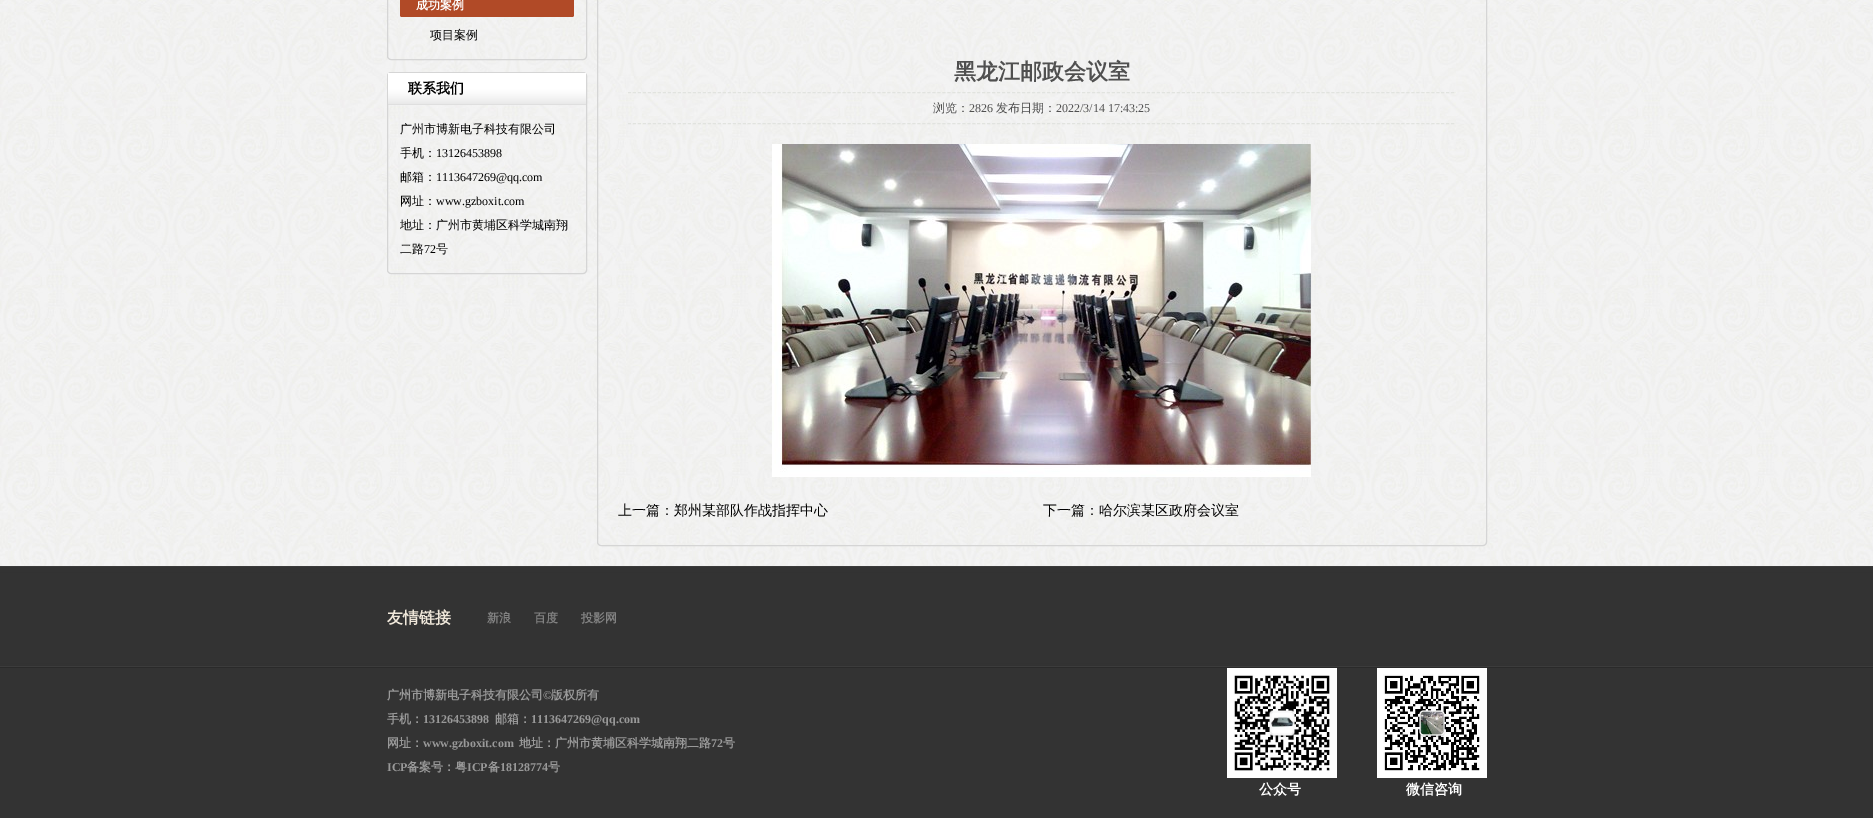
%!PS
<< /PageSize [1873 818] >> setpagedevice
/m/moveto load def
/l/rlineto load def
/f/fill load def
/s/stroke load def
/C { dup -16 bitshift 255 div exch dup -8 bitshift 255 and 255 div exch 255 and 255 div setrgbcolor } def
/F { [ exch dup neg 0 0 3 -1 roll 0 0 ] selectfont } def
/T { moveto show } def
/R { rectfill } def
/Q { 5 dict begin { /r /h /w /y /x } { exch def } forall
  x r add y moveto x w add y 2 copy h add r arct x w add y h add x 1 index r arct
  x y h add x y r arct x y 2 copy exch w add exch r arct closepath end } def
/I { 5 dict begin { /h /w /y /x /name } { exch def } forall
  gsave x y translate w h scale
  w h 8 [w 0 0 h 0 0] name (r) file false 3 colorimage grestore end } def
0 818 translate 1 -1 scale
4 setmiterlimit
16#FFFFFF C
0 0 1873 818 R
(1.rgb) 0 0 1873 566 I
16#D5D5D5 C
387.5 -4.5 199 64 3.5 Q s
16#B14A27 C
400 -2 174 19 2 Q f
/WenQuanYiZenHei-Bold 12 F
16#FFFFFF C
(成功案例) 416 9 T
/WenQuanYiZenHei-Medium 12 F
16#000000 C
(项目案例) 430 39 T
16#D5D5D5 C
387.5 72.5 199 201 3.5 Q s
(2.rgb) 388 73 198 32 I
/WenQuanYiZenHei-Bold 14 F
16#000000 C
(联系我们) 408 93 T
/WenQuanYiZenHei-Medium 12 F
(广州市博新电子科技有限公司) 400 133 T
(手机：) 400 157 T
/LiberationSerif-Regular 12 F
(13126453898) 436 157 T
/WenQuanYiZenHei-Medium 12 F
(邮箱：) 400 181 T
/LiberationSerif-Regular 12 F
(1113647269@qq.com) 436 181 T
/WenQuanYiZenHei-Medium 12 F
(网址：) 400 205 T
/LiberationSerif-Regular 12 F
(www.gzboxit.com) 436 205 T
/WenQuanYiZenHei-Medium 12 F
(地址：广州市黄埔区科学城南翔) 400 229 T
(二路) 400 253 T
/LiberationSerif-Regular 12 F
(72) 424 253 T
/WenQuanYiZenHei-Medium 12 F
(号) 436 253 T
16#D5D5D5 C
597.5 -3.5 889 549 3.5 Q s
16#E1E3DF C
[3 1.99] 0 setdash
628 92.5 m 827 0 l s
/WenQuanYiZenHei-Bold 22 F
16#505050 C
(黑龙江邮政会议室) 954 79 T
16#E1E3DF C
628 123.5 m 827 0 l s
/WenQuanYiZenHei-Medium 12 F
16#505050 C
(浏览：) 933 112 T
/LiberationSerif-Regular 12 F
(2826) 969 112 T
/WenQuanYiZenHei-Medium 12 F
(发布日期：) 996 112 T
/LiberationSerif-Regular 12 F
(2022/3/14 17:43:25) 1056 112 T
(3.rgb) 772 144 539 333 I
/WenQuanYiZenHei-Medium 14 F
16#000000 C
(上一篇：郑州某部队作战指挥中心) 618 515 T
(下一篇：哈尔滨某区政府会议室) 1043 515 T
(4.rgb) 0 566 1873 252 I
/WenQuanYiZenHei-Bold 16 F
16#EFE7DA C
(友情链接) 387 623 T
/WenQuanYiZenHei-Bold 12 F
16#828282 C
(新浪) 487 622 T
(百度) 534 622 T
(投影网) 581 622 T
16#999999 C
(广州市博新电子科技有限公司) 387 699 T
/LiberationSerif-Bold 12 F
(©) 543 699 T
/WenQuanYiZenHei-Bold 12 F
(版权所有) 551 699 T
(手机：) 387 723 T
/LiberationSerif-Bold 12 F
(13126453898) 423 723 T
/WenQuanYiZenHei-Bold 12 F
(邮箱：) 495 723 T
/LiberationSerif-Bold 12 F
(1113647269@qq.com) 531 723 T
/WenQuanYiZenHei-Bold 12 F
(网址：) 387 747 T
/LiberationSerif-Bold 12 F
(www.gzboxit.com) 423 747 T
/WenQuanYiZenHei-Bold 12 F
(地址：广州市黄埔区科学城南翔二路) 519 747 T
/LiberationSerif-Bold 12 F
(72) 711 747 T
/WenQuanYiZenHei-Bold 12 F
(号) 723 747 T
/LiberationSerif-Bold 12 F
(ICP) 387 771 T
/WenQuanYiZenHei-Bold 12 F
(备案号：粤) 407 771 T
/LiberationSerif-Bold 12 F
(ICP) 467 771 T
/WenQuanYiZenHei-Bold 12 F
(备) 488 771 T
/LiberationSerif-Bold 12 F
(18128774) 500 771 T
/WenQuanYiZenHei-Bold 12 F
(号) 548 771 T
(5.rgb) 1227 668 110 110 I
(6.rgb) 1377 668 110 110 I
/WenQuanYiZenHei-Bold 14 F
16#FFFFFF C
(公众号) 1259 794 T
(微信咨询) 1406 794 T
showpage
